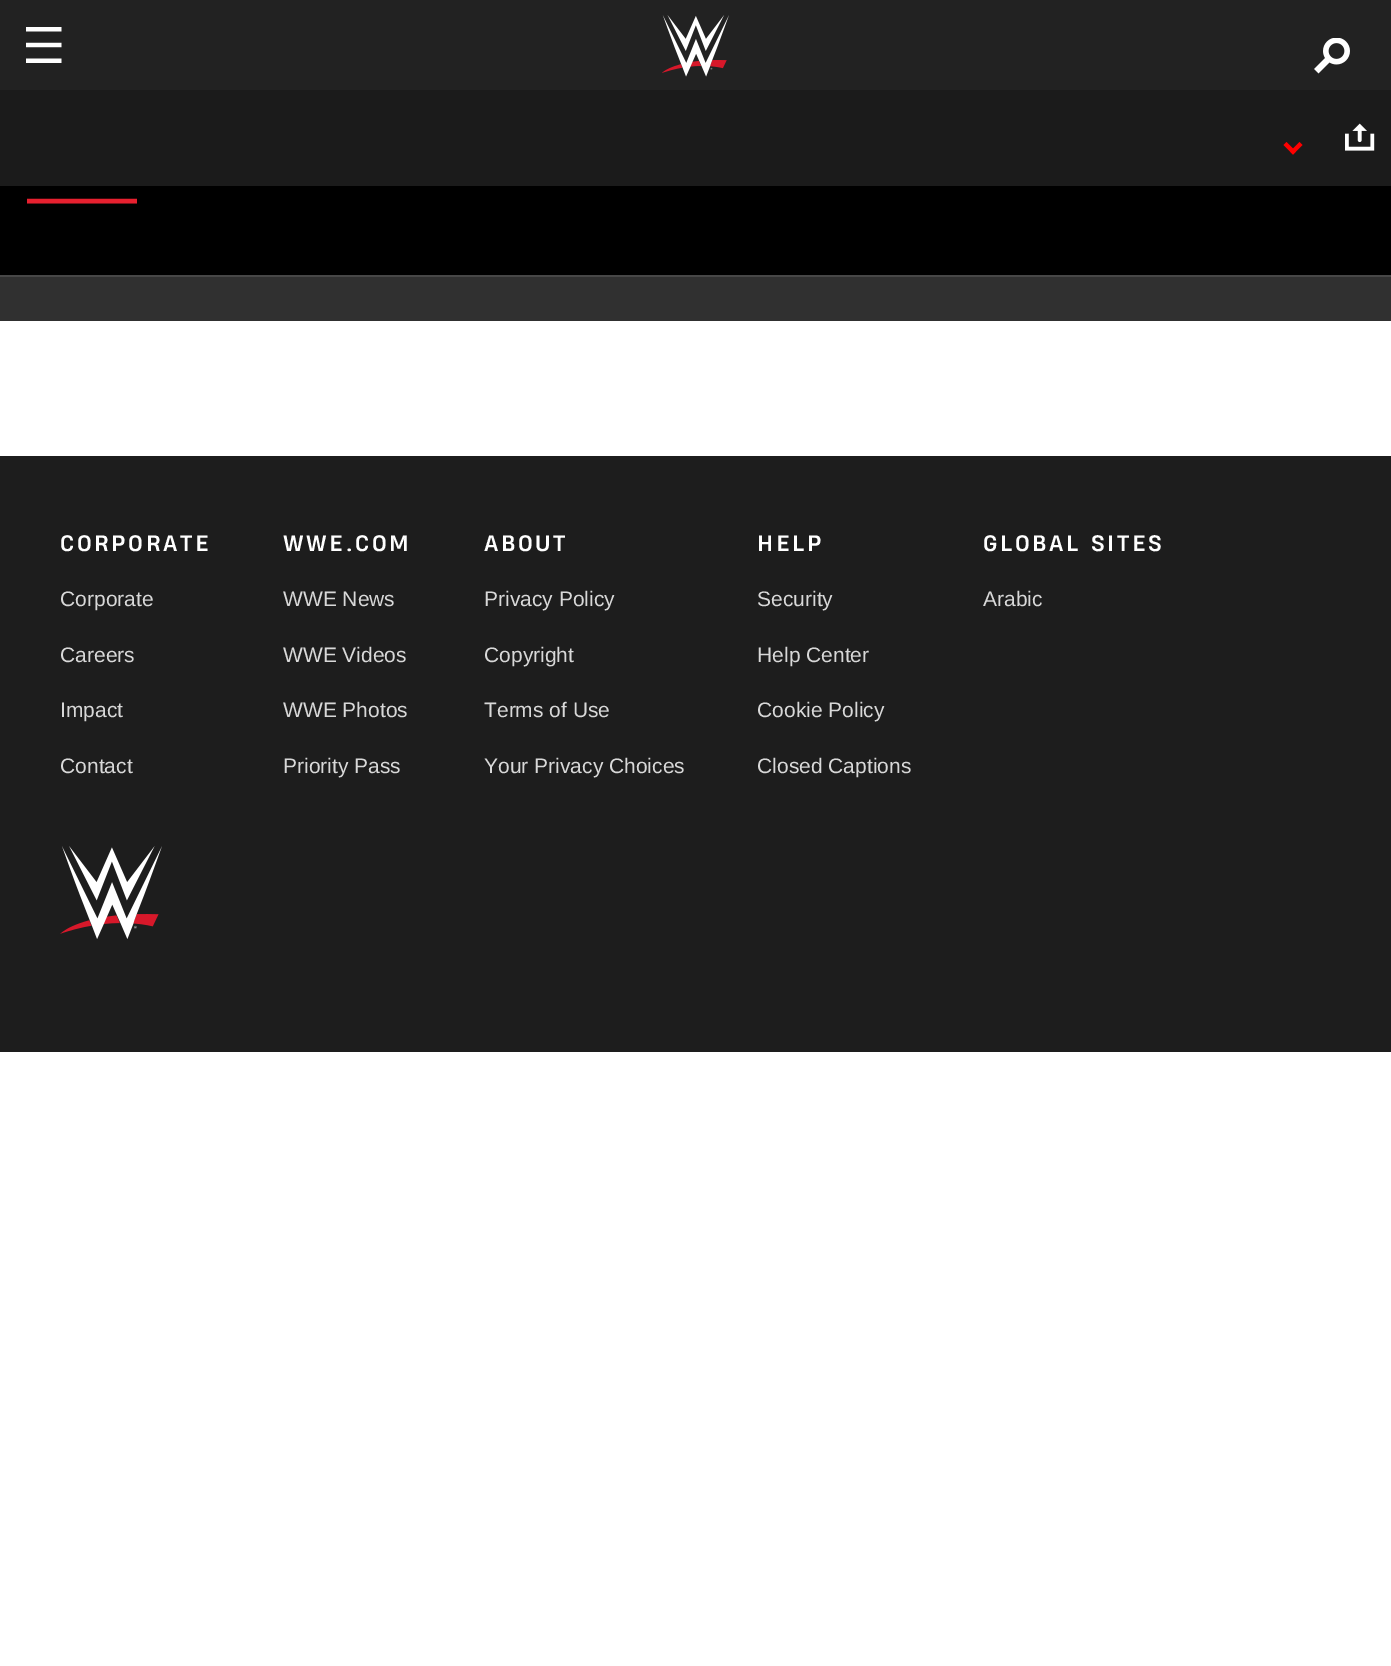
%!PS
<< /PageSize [1391 1666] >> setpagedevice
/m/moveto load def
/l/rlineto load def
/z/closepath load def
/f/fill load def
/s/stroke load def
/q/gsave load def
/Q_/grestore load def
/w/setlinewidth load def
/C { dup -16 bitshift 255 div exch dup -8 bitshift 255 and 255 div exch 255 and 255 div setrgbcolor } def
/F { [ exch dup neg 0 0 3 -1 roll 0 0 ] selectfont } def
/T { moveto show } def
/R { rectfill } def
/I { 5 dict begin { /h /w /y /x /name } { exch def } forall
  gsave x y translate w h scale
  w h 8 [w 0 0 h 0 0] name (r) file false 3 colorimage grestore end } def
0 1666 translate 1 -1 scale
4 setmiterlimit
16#FFFFFF C
0 0 1391 1666 R
16#222222 C
0 0 1391 90 R
(1.rgb) 26 27 36 36 I
(2.rgb) 662 15 67 62 I
(3.rgb) 1314 38 36 36 I
16#303030 C
0 277 1391 44 R
16#1B1B1B C
0 90 1391 96 R
16#FF0000 C
1299.5 142 m 3 3 l -9.5 9.5 l -3 -3 l z f
1286.5 142 m 9.5 9.5 l -3 3 l -9.5 -9.5 l z f
(4.rgb) 1345 123 30 28 I
16#000000 C
0 186 1391 89 R
16#474747 C
0 275 1391 2 R
q
27 197 135 7 rectclip
16#E7202F C
4.5 w
2 201 m 135 0 l s
Q_
16#1D1D1D C
0 456 1391 596 R
/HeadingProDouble-Bold 21 F
16#FFFFFF C
60 551 m 2.6 0 (CORPORATE) ashow
/LiberationSans-Regular 21 F
16#D8D8D8 C
(Corporate) 60 606 T
(Careers) 60 662 T
(Impact) 60 717 T
(Contact) 60 773 T
/HeadingProDouble-Bold 21 F
16#FFFFFF C
283 551 m 2.6 0 (WWE.COM) ashow
/LiberationSans-Regular 21 F
16#D8D8D8 C
(WWE News) 283 606 T
(WWE Videos) 283 662 T
(WWE Photos) 283 717 T
(Priority Pass) 283 773 T
/HeadingProDouble-Bold 21 F
16#FFFFFF C
484 551 m 2.6 0 (ABOUT) ashow
/LiberationSans-Regular 21 F
16#D8D8D8 C
(Privacy Policy) 484 606 T
(Copyright) 484 662 T
(Terms of Use) 484 717 T
(Your Privacy Choices) 484 773 T
/HeadingProDouble-Bold 21 F
16#FFFFFF C
757 551 m 2.6 0 (HELP) ashow
/LiberationSans-Regular 21 F
16#D8D8D8 C
(Security) 757 606 T
(Help Center) 757 662 T
(Cookie Policy) 757 717 T
(Closed Captions) 757 773 T
/HeadingProDouble-Bold 21 F
16#FFFFFF C
983 551 m 2.6 0 (GLOBAL SITES) ashow
/LiberationSans-Regular 21 F
16#D8D8D8 C
(Arabic) 983 606 T
(5.rgb) 60 846 102 93 I
showpage
